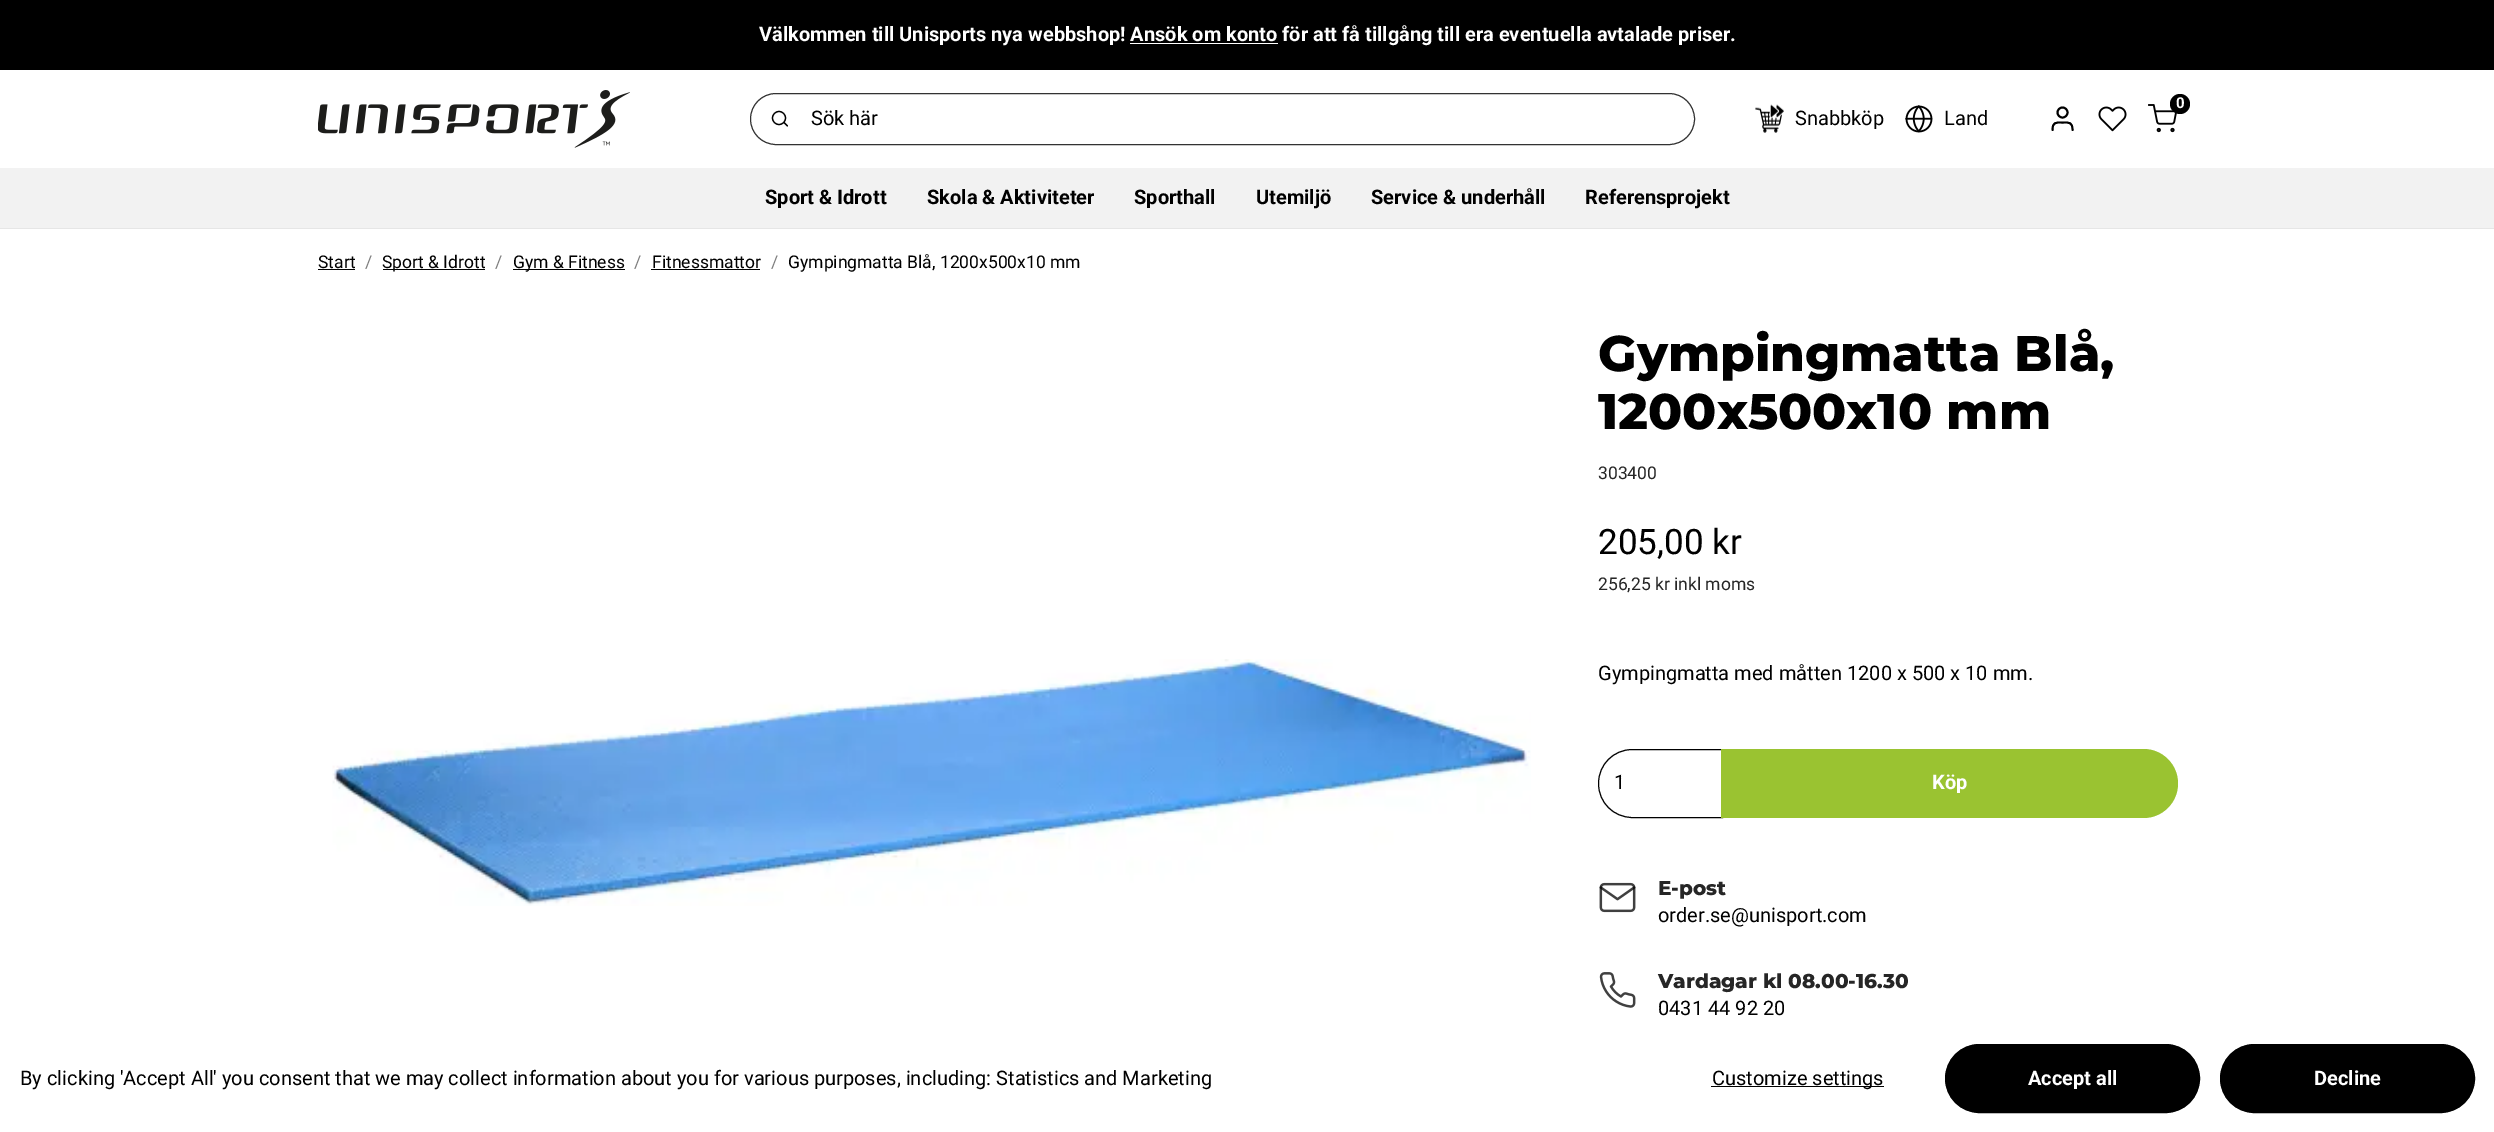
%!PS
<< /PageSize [2494 1132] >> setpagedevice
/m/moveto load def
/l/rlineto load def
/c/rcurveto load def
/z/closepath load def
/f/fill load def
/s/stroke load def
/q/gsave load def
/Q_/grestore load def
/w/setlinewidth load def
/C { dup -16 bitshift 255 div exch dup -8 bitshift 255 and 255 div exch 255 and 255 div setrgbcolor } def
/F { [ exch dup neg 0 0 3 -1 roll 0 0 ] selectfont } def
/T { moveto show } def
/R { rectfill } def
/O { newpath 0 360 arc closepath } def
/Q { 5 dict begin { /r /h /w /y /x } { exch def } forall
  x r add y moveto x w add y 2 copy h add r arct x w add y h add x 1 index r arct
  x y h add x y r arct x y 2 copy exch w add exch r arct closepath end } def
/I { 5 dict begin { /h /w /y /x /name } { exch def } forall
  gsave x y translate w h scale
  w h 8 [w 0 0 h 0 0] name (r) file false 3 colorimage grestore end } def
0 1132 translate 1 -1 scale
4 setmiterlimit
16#FFFFFF C
0 0 2494 1132 R
16#E6E6E6 C
0 228 2494 1 R
16#000000 C
0 0 2494 70 R
/Roboto-Bold 20 F
16#FFFFFF C
(Välkommen till Unisports nya webbshop! Ansök om konto för att få tillgång till era eventuella avtalade priser.) 759 41 T
1130 43 148 1 R
(1.rgb) 318 90 312 58 I
(2.rgb) 2148 104 29 29 I
16#000000 C
2180 104 10 O f
/Roboto-Bold 15 F
16#FFFFFF C
(0) 2176 108 T
16#000000 C
1.9 w
1 setlinecap
1 setlinejoin
2072.5 130 m 0 -8 -3 -7.5 -10 -7.5 c -7 0 -10 -.5 -10 7.5 c s
0 setlinecap
0 setlinejoin
2062.5 112.5 5 O s
(3.rgb) 2098 106 29 26 I
16#333333 C
1 w
750.5 93.5 944 51 25.5 Q s
16#000000 C
1.2 w
779 118 6.5 O s
1 setlinecap
1 setlinejoin
787.5 126 m -3.5 -3.5 l s
/Roboto-Regular 20 F
(Sök här) 811 125 T
(4.rgb) 1755 104 29 29 I
(Snabbköp) 1795 125 T
(5.rgb) 1905 105 28 28 I
(Land) 1944 125 T
16#F2F2F2 C
0 168 2494 60 R
/Roboto-Bold 20 F
16#000000 C
(Sport & Idrott) 765 204 T
(Skola & Aktiviteter) 927 204 T
(Sporthall) 1134 204 T
(Utemiljö) 1256 204 T
(Service & underhåll) 1371 204 T
(Referensprojekt) 1585 204 T
/Roboto-Regular 17.5 F
(Start) 318 268 T
318 269 37 1 R
16#808080 C
(/) 365 268 T
16#000000 C
383 269 102 1 R
(Sport & Idrott) 382 268 T
16#808080 C
(/) 495 268 T
16#000000 C
513 269 112 1 R
(Gym & Fitness) 513 268 T
16#808080 C
(/) 634 268 T
16#000000 C
(Fitnessmattor) 652 268 T
651 269 109 1 R
16#808080 C
(/) 771 268 T
16#000000 C
(Gympingmatta Blå, 1200x500x10 mm) 788 268 T
(6.rgb) 332 659 1199 247 I
/Montserrat-ExtraBold 50 F
(Gympingmatta Blå,) 1598 371 T
(1200x500x10 mm) 1598 429 T
/Roboto-Regular 17.5 F
16#262626 C
(303400) 1598 479 T
/Roboto-Regular 35 F
16#000000 C
(205,00 kr) 1598 554 T
/Roboto-Regular 17.5 F
16#262626 C
(256,25 kr inkl moms) 1598 590 T
/Roboto-Regular 20 F
16#000000 C
(Gympingmatta med måtten 1200 x 500 x 10 mm.) 1598 680 T
1 w
0 setlinecap
0 setlinejoin
1632.5 749.5 m 90 0 l 0 68 l -90 0 l -19 0 -34 -15 -34 -34 c 0 -19 15 -34 34 -34 c z s
(1) 1614 789 T
16#9AC331 C
1721 749 m 422.5 0 l 19 0 34.5 15.5 34.5 34.5 c 0 19 -15.5 34.5 -34.5 34.5 c -422.5 0 l z f
/Roboto-Bold 20 F
16#FFFFFF C
(Köp) 1932 789 T
(7.rgb) 1599 882 37 31 I
/Montserrat-ExtraBold 20 F
16#262626 C
(E-post) 1658 895 T
/Roboto-Regular 20 F
16#000000 C
(order.se@unisport.com) 1658 922 T
(8.rgb) 1599 972 37 36 I
/Montserrat-ExtraBold 20 F
16#262626 C
(Vardagar kl 08.00-16.30) 1658 988 T
/Roboto-Regular 20 F
16#000000 C
(0431 44 92 20) 1658 1015 T
(By clicking 'Accept All' you consent that we may collect information about you for various purposes, including: Statistics and Marketing) 20 1085 T
1711 1086 173 1 R
(Customize settings) 1712 1085 T
1945.5 1044.5 254 68 34 Q q f Q_
s
/Roboto-Bold 20 F
16#FFFFFF C
(Accept all) 2028 1085 T
16#000000 C
2220.5 1044.5 254 68 34 Q q f Q_
s
16#FFFFFF C
(Decline) 2314 1085 T
showpage
